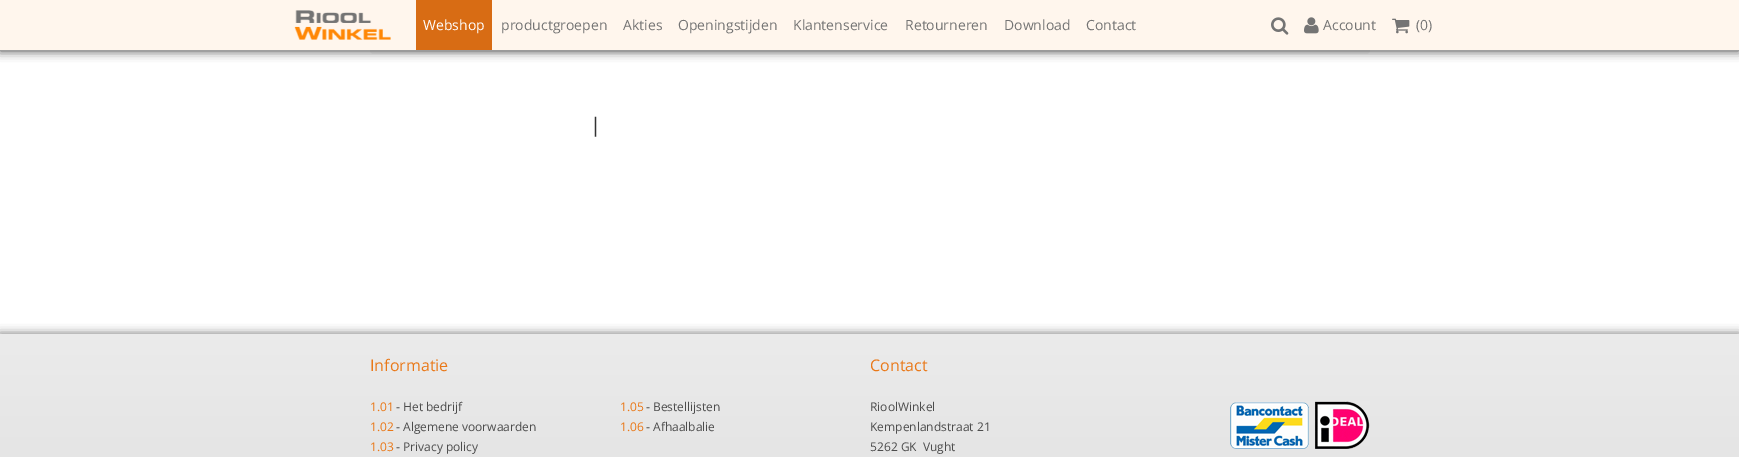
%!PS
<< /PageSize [1739 457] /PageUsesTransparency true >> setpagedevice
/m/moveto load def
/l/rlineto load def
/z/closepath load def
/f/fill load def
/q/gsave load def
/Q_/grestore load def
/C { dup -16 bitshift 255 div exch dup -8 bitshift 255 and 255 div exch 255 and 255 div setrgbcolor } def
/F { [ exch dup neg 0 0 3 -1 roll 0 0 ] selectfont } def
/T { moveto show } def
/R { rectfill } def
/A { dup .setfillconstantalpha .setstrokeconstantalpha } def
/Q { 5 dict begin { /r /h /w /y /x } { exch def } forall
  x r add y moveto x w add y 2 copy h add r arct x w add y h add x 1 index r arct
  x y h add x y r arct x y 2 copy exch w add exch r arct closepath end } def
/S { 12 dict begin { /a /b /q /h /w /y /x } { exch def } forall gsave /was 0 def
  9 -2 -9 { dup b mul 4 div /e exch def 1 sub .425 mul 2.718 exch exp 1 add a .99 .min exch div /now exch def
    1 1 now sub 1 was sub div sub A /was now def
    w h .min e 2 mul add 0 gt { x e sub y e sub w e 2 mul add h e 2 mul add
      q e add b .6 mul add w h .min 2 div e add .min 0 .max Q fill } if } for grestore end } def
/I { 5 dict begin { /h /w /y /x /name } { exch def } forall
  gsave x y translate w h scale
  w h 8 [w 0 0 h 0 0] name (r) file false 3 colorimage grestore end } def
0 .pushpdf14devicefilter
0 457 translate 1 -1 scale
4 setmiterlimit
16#FFFFFF C
0 0 1739 457 R
16#F5F5F5 C
370 18 1000 36 4 Q f
16#000000 C
0 1 1739 50 0 5 .75 S
16#FFF6ED C
0 0 1739 50 R
(1.rgb) 294 10 97 30 I
16#D86C14 C
416 0 76 50 R
/OpenSans-Regular 14 F
16#FFFFFF C
(Webshop) 423 30 T
16#747474 C
(productgroepen) 501 30 T
(Akties) 623 30 T
(Openingstijden) 678 30 T
(Klantenservice) 793 30 T
(Retourneren) 905 30 T
(Download) 1004 30 T
(Contact) 1086 30 T
(2.rgb) 1271 17 18 18 I
(3.rgb) 1304 17 15 17 I
(Account) 1323 30 T
(4.rgb) 1392 18 18 16 I
(\(0\)) 1416 30 T
/OpenSans-Regular 20 F
16#333333 C
(|) 590 132 T
16#000000 C
0 335 1739 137 0 5 .75 S
q 0 334 m 1739 0 l 0 123 l -1739 0 l z clip newpath
<< /ShadingType 2 /ColorSpace /DeviceRGB /Coords [870 334 870 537] /Extend [true true] /Function << /FunctionType 2 /Domain [0 1] /C0 [.922 .922 .922] /C1 [.882 .882 .882] /N 1 >> >> shfill Q_
/OpenSans-Regular 16 F
16#E97818 C
(Informatie) 370 371 T
/OpenSans-Regular 12 F
(1.01) 370 411 T
16#4C4C4C C
(- Het bedrijf) 396 411 T
16#E97818 C
(1.02) 370 431 T
16#4C4C4C C
(- Algemene voorwaarden) 396 431 T
16#E97818 C
(1.03) 370 451 T
16#4C4C4C C
(- Privacy policy) 396 451 T
16#E97818 C
(1.05) 620 411 T
16#4C4C4C C
(- Bestellijsten) 646 411 T
16#E97818 C
(1.06) 620 431 T
16#4C4C4C C
(- Afhaalbalie) 646 431 T
/OpenSans-Regular 16 F
16#E97818 C
(Contact) 870 371 T
/OpenSans-Regular 12 F
16#4C4C4C C
(RioolWinkel) 870 411 T
(Kempenlandstraat 21) 870 431 T
(5262 GK  Vught) 870 451 T
(5.rgb) 1230 401 140 48 I
.poppdf14devicefilter showpage
